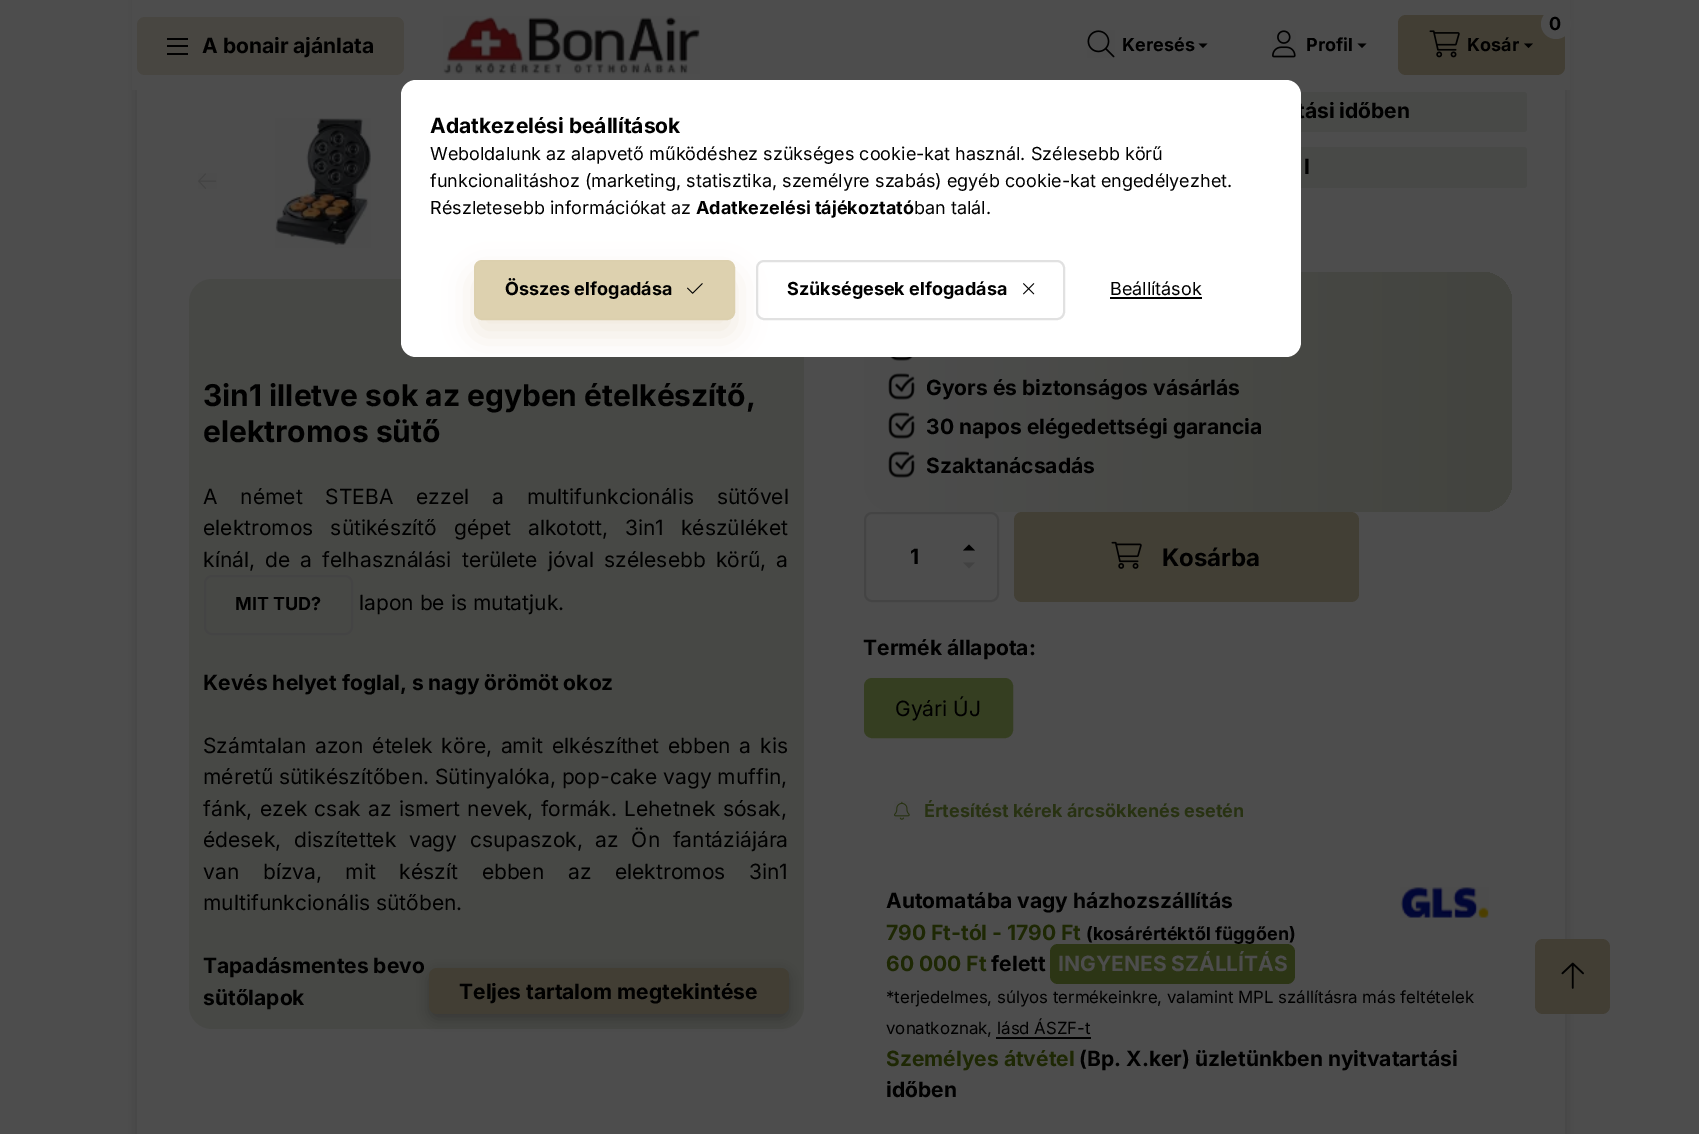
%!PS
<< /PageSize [1699 1134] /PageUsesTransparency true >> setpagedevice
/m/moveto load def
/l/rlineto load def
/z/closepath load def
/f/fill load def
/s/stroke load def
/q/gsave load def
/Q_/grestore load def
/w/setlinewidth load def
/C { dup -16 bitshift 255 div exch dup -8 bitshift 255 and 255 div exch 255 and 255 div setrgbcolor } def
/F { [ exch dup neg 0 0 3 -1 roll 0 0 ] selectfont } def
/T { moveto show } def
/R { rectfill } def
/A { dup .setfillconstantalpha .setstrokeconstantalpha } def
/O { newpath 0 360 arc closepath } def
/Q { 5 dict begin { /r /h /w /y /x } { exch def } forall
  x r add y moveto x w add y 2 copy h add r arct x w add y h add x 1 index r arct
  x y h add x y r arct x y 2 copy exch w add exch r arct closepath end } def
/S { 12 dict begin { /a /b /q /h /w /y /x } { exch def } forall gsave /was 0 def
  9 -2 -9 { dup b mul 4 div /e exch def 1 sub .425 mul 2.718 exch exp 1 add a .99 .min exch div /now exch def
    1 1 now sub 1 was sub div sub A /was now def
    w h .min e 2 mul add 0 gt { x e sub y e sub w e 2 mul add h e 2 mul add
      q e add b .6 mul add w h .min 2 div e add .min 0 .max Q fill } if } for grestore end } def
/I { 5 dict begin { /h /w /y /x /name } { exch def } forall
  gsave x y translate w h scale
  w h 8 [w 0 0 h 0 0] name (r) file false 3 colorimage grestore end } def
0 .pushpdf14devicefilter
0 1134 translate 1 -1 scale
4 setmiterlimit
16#4D4D4D C
0 0 1699 1134 R
16#262626 C
137 -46 1428 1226 23 7.5 .28 S
16#4D4D4D C
132 0 1438 90 R
16#484641 C
137 17 267 58 8 Q f
16#000000 C
167 38 21 2 R
167 45 21 2 R
167 53 21 2 R
/Inter-Bold 21 F
(A bonair ajánlata) 202 53 T
(1.rgb) 443 16 257 58 I
(2.rgb) 1087 30 28 28 I
/Inter-Bold 18 F
(Keresés) 1122 51 T
1198.5 43.5 m 9 0 l -4.5 4.5 l z f
(3.rgb) 1272 30 24 28 I
(Profil) 1306 51 T
1357.5 43.5 m 9 0 l -4.5 4.5 l z f
16#423E34 C
1398 15 167 60 8 Q f
16#4D4D4D C
1556 24 15 O f
16#000000 C
(0) 1549 30 T
(4.rgb) 1429 30 31 28 I
(Kosár) 1467 51 T
1524 43.5 m 9 0 l -4.5 4.5 l z f
16#4D4D4D C
137 90 1428 1044 R
(5.rgb) 198 173 19 16 I
(6.rgb) 275 118 96 130 I
16#474845 C
189 279 615 750 23 Q f
/Inter-Bold 30 F
16#000000 C
(3in1 illetve sok az egyben ételkészítő,) 203 406 T
(elektromos sütő) 203 442 T
/Inter-Regular 21 F
203 504 m 17 0 32 (A német STEBA ezzel a multifunkcionális sütővel) widthshow
203 535 m 11 0 32 (elektromos sütikészítő gépet alkotott, 3in1 készüléket) widthshow
203 567 m 4.25 0 32 (kínál, de a felhasználási területe jóval szélesebb körű, a) widthshow
16#444444 C
2 w
205 576 147 58 7 Q s
/Inter-Bold 18 F
16#000000 C
(MIT TUD?) 235 610 T
/Inter-Regular 21 F
(lapon be is mutatjuk.) 359 610 T
/Inter-Bold 21 F
(Kevés helyet foglal, s nagy örömöt okoz) 203 690 T
/Inter-Regular 21 F
203 753 m 3 0 32 (Számtalan azon ételek köre, amit elkészíthet ebben a kis) widthshow
(méretű sütikészítőben. Sütinyalóka, pop-cake vagy muffin,) 203 784 T
203 816 m 1.25 0 32 (fánk, ezek csak az ismert nevek, formák. Lehetnek sósak,) widthshow
203 847 m 6.75 0 32 (édesek, diszítettek vagy csupaszok, az Ön fantáziájára) widthshow
203 879 m 17.75 0 32 (van bízva, mit készít ebben az elektromos 3in1) widthshow
(multifunkcionális sütőben.) 203 910 T
/Inter-Bold 21 F
(Tapadásmentes bevo) 203 973 T
(sütőlapok) 203 1005 T
429 972 360 47 8 6 .24 S
16#423E34 C
429 968 360 46 8 Q f
16#000000 C
(Teljes tartalom megtekintése) 459 999 T
16#484947 C
849 92 678 40 3 Q f
16#000000 C
(tási időben) 1297 118 T
16#484947 C
849 147 678 41 3 Q f
16#000000 C
(l) 1304 174 T
q 864 272 648 240 30 Q clip newpath
<< /ShadingType 2 /ColorSpace /DeviceRGB /Coords [864 392 1512 392] /Extend [true true] /Function << /FunctionType 2 /Domain [0 1] /C0 [.302 .302 .302] /C1 [.263 .267 .247] /N 1 >> >> shfill Q_
(7.rgb) 890 357 23 4 I
(8.rgb) 888 373 27 27 I
(Gyors és biztonságos vásárlás) 926 395 T
(8.rgb) 888 412 27 27 I
(30 napos elégedettségi garancia) 926 434 T
(8.rgb) 888 451 27 27 I
(Szaktanácsadás) 926 473 T
16#444444 C
865 513 133 88 7 Q s
16#000000 C
(1) 910 564 T
975 550.5 m -12 0 l 6 -6 l z f
16#424242 C
963 562.5 m 12 0 l -6 6 l z f
16#423F35 C
1014 512 345 90 8 Q f
(9.rgb) 1111 541 31 28 I
/Inter-Bold 24 F
16#000000 C
(Kosárba) 1162 566 T
/Inter-Bold 21 F
(Termék állapota:) 863 655 T
16#353E21 C
865 679 147 58 7 Q q f Q_
s
/Inter-Regular 21 F
16#000000 C
(Gyári ÚJ) 895 716 T
(10.rgb) 894 801 16 19 I
/Inter-Bold 18 F
16#283212 C
(Értesítést kérek árcsökkenés esetén) 924 817 T
/Inter-Bold 21 F
16#000000 C
(Automatába vagy házhozszállítás) 886 908 T
16#1E2804 C
(790 Ft-tól - 1790 Ft) 886 940 T
/Inter-Bold 18 F
16#000000 C
(\(kosárértéktől függően\)) 1086 940 T
(11.rgb) 1400 887 89 31 I
/Inter-Bold 21 F
16#1E2804 C
(60 000 Ft) 886 971 T
16#000000 C
(felett) 991 971 T
16#2C3515 C
1050 944 245 40 8 Q f
16#4D4D4D C
(INGYENES SZÁLLÍTÁS) 1058 971 T
/Inter-Regular 16.8 F
16#000000 C
(*terjedelmes, súlyos termékeinkre, valamint MPL szállításra más feltételek) 886 1003 T
(vonatkoznak, lásd ÁSZF-t) 886 1034 T
996 1037 95 2 R
/Inter-Bold 21 F
16#1E2804 C
(Személyes átvétel) 886 1066 T
16#000000 C
(\(Bp. X.ker\) üzletünkben nyitvatartási) 1079 1066 T
(időben) 886 1097 T
16#FFFFFF C
401 80 900 277 15 Q f
16#000000 C
(Adatkezelési beállítások) 430 133 T
/Inter-Regular 18 F
(Weboldalunk az alapvető működéshez szükséges cookie-kat használ. Szélesebb körű) 430 160 T
(funkcionalitáshoz \(marketing, statisztika, személyre szabás\) egyéb cookie-kat engedélyezhet.) 430 187 T
(Részletesebb információkat az) 430 214 T
/Inter-Bold 18 F
(Adatkezelési tájékoztató) 696 214 T
/Inter-Regular 18 F
(ban talál.) 914 214 T
q
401 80 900 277 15 Q clip newpath
16#DCD0AE C
474 275 261 60 8 15 .4 S
Q_
16#DDD1AF C
475 261 259 58 7 Q q f Q_
16#DCD0AE C
s
/Inter-Bold 18 F
16#000000 C
(Összes elfogadása) 505 295 T
(12.rgb) 687 283 16 11 I
16#E1E1E1 C
757 261 307 58 7 Q s
16#000000 C
(Szükségesek elfogadása) 787 295 T
(13.rgb) 1023 283 12 12 I
/Inter-Regular 18 F
(Beállítások) 1110 295 T
1110 297 92 2 R
16#423E34 C
1535 939 75 75 8 Q f
(14.rgb) 1561 962 23 27 I
.poppdf14devicefilter showpage
